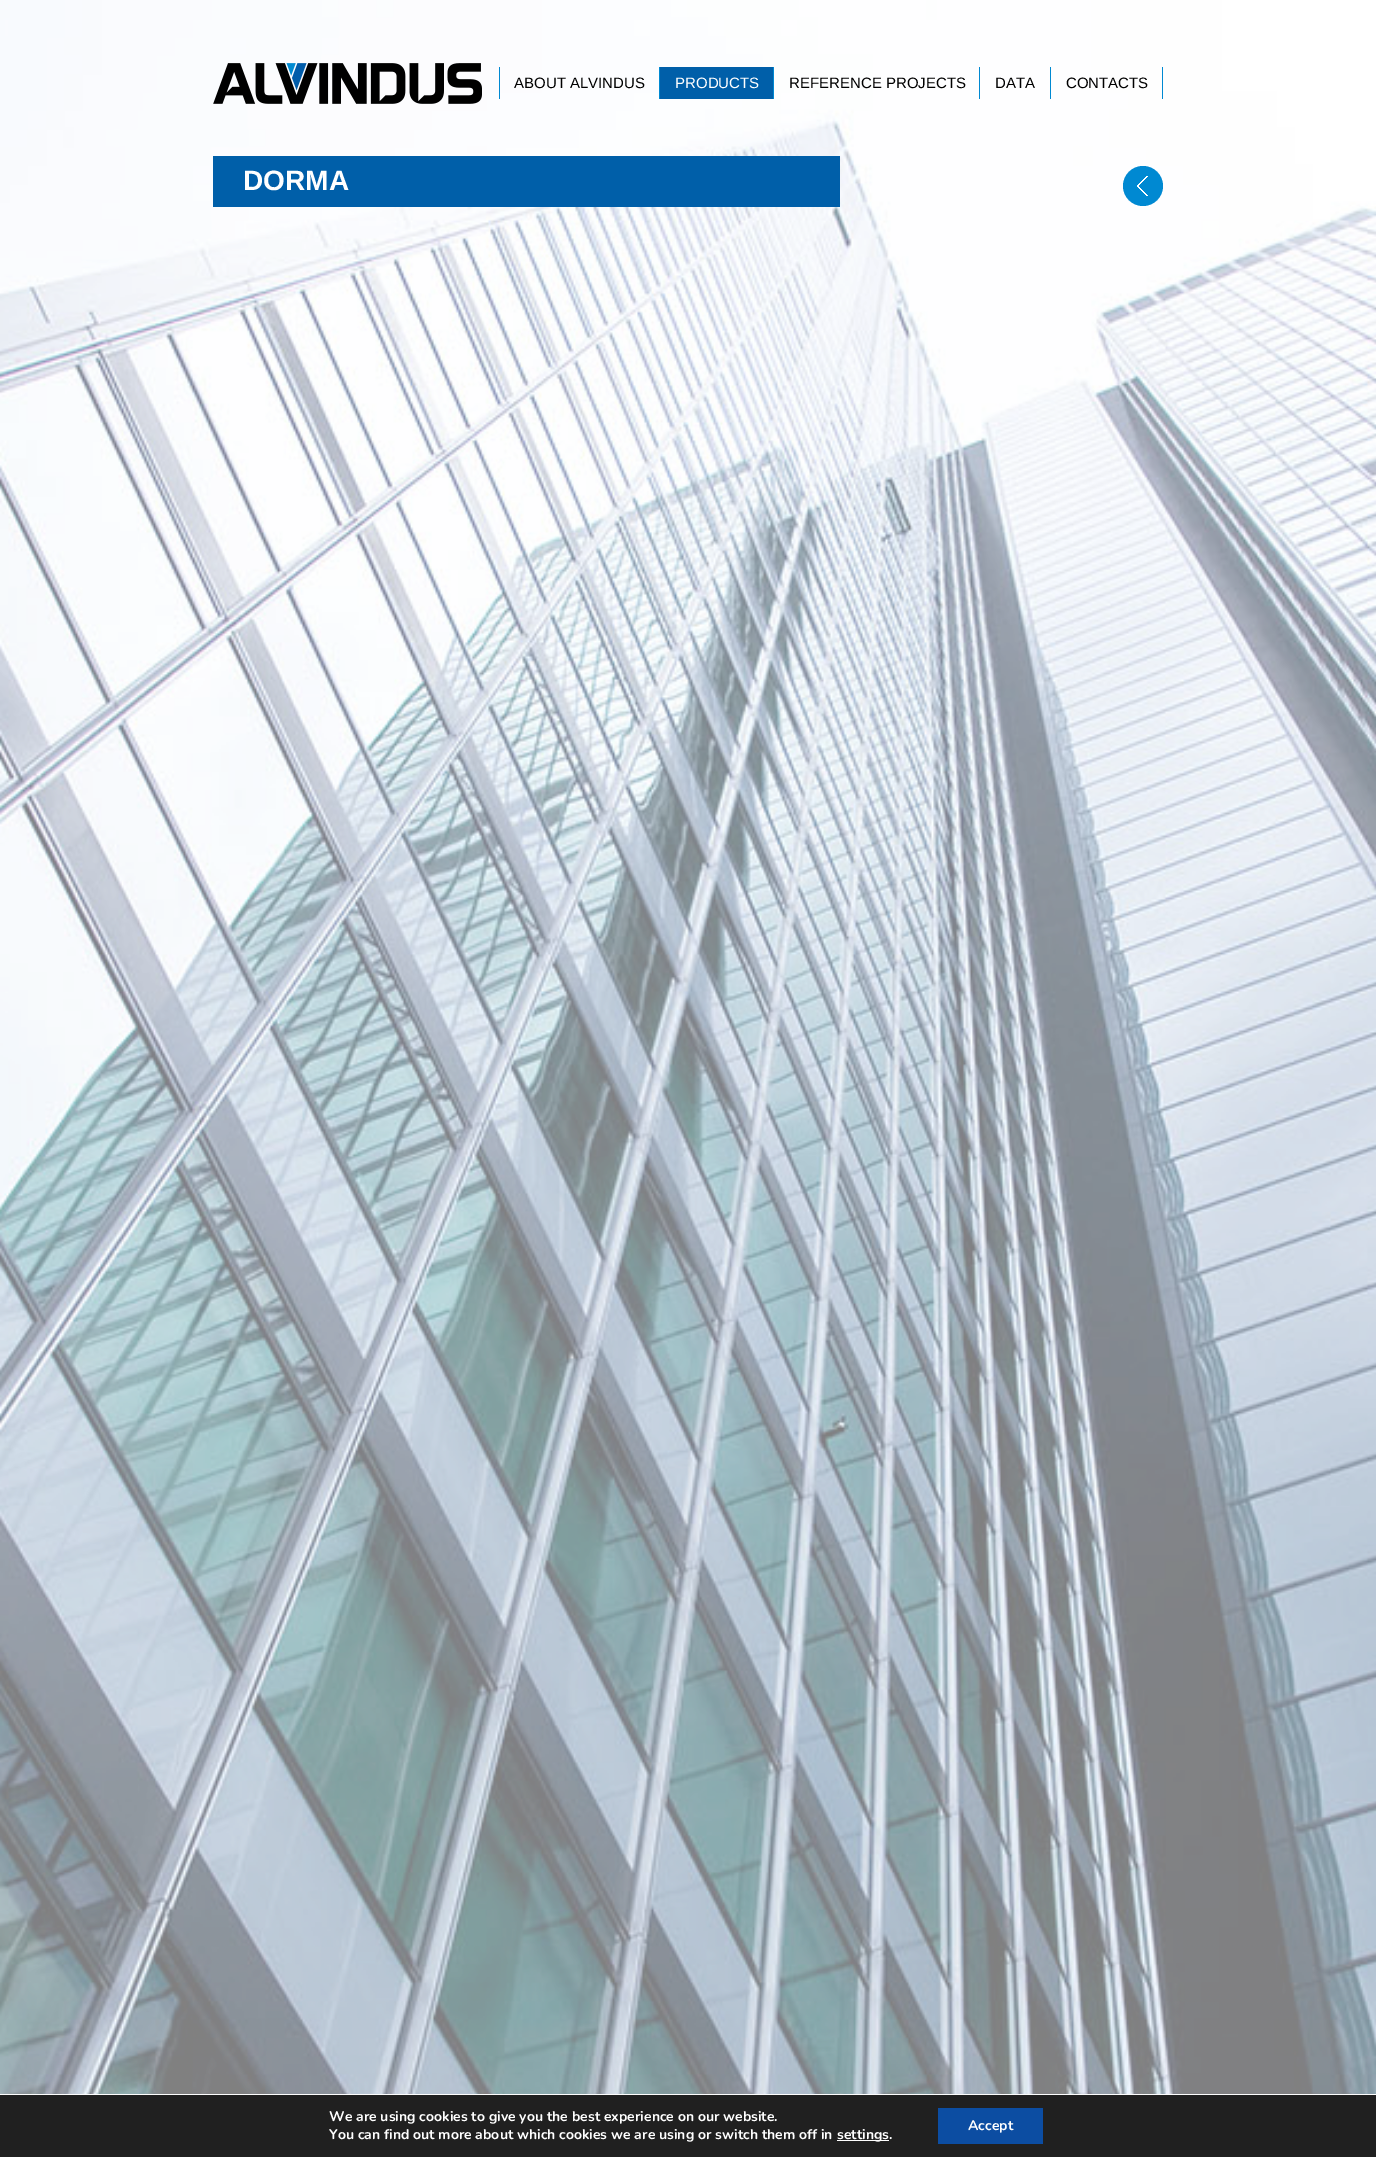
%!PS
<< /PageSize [1376 2157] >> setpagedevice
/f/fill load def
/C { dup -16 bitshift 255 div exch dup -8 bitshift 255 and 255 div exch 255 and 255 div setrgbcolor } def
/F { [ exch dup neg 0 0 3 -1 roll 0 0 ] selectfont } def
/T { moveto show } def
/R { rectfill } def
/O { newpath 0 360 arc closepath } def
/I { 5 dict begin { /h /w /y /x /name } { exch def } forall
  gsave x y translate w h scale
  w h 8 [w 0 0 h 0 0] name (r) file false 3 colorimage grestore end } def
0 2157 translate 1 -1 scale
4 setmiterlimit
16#FFFFFF C
0 0 1376 2157 R
(1.rgb) 0 0 1376 2094 I
(2.rgb) 213 63 269 41 I
16#0089D2 C
499 67 1 32 R
/LiberationSans-Regular 15 F
16#000000 C
(ABOUT ALVINDUS) 514 88 T
16#0089D2 C
659 67 1 32 R
16#005FA9 C
660 67 113 32 R
16#FFFFFF C
(PRODUCTS) 675 88 T
16#0089D2 C
773 67 1 32 R
16#000000 C
(REFERENCE PROJECTS) 789 88 T
16#0089D2 C
979 67 1 32 R
16#000000 C
(DATA) 995 88 T
16#0089D2 C
1050 67 1 32 R
16#000000 C
(CONTACTS) 1066 88 T
16#0089D2 C
1162 67 1 32 R
16#005FA9 C
213 156 627 51 R
/LiberationSans-Bold 28 F
16#FFFFFF C
(DORMA) 243 190 T
16#0089D2 C
1143 186 20 O f
(3.rgb) 1137 176 11 20 I
16#202020 C
0 2095 1376 62 R
/Nunito-Bold 14 F
16#FFFFFF C
(We are using cookies to give you the best experience on our website.) 329 2121 T
(You can find out more about which cookies we are using or switch them off in) 329 2139 T
837 2140 52 1 R
(settings.) 837 2139 T
16#0C4DA2 C
938 2108 105 36 R
16#FFFFFF C
(Accept) 968 2130 T
showpage
